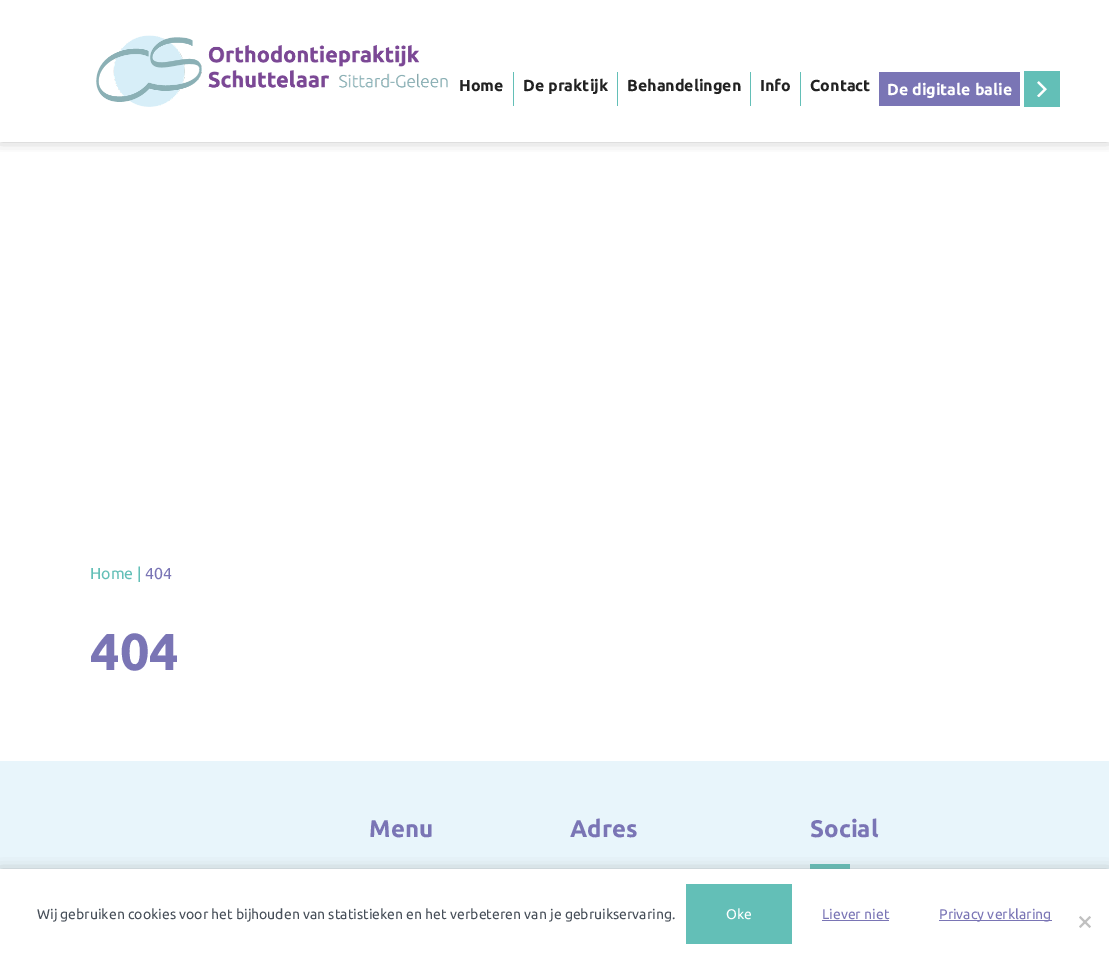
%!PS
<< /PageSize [1109 974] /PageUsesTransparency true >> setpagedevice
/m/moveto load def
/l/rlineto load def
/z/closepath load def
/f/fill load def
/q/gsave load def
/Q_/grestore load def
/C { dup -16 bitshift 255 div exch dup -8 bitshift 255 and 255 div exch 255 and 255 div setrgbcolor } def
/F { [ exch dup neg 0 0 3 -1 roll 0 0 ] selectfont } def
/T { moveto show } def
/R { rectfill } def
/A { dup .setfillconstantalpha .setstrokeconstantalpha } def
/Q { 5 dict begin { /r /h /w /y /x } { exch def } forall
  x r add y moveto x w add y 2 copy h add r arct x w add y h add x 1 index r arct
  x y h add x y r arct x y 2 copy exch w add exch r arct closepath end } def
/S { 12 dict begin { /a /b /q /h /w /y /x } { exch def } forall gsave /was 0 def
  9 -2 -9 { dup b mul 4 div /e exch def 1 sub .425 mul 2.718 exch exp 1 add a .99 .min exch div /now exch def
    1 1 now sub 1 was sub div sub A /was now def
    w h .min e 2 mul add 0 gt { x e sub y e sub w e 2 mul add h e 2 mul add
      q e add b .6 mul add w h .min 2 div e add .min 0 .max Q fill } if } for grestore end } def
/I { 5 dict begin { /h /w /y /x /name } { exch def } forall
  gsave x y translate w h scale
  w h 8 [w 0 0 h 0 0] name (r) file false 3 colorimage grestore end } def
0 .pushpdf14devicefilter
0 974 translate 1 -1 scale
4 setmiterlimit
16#FFFFFF C
0 0 1109 974 R
q
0 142 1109 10 rectclip
16#808080 C
0 -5 1109 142 0 7.5 1 S
Q_
(1.rgb) 96 35 352 72 I
/Ubuntu-Bold 16 F
16#222222 C
(Home) 459 91 T
16#63BFB7 C
513 72 1 34 R
16#222222 C
(De praktijk) 523 91 T
16#63BFB7 C
617 72 1 34 R
16#222222 C
(Behandelingen) 627 91 T
16#63BFB7 C
750 72 1 34 R
16#222222 C
(Info) 760 91 T
16#63BFB7 C
800 72 1 34 R
16#222222 C
(Contact) 810 91 T
16#7A75B5 C
879 72 141 34 R
16#FFFFFF C
(De digitale balie) 887 95 T
16#63BFB7 C
1024 71 36 36 R
(2.rgb) 1037 81 10 16 I
/Ubuntu-Regular 16 F
(Home |) 90 579 T
16#7A75B5 C
(404) 145 579 T
/Ubuntu-Bold 52 F
(404) 90 670 T
16#E8F5FB C
0 761 1109 108 R
/Ubuntu-Bold 24 F
16#7A75B5 C
(Menu) 369 837 T
(Adres) 570 837 T
(Social) 810 837 T
16#63BFB7 C
810 864 40 5 R
16#808080 C
0 874 1109 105 0 7.5 1 S
16#FFFFFF C
0 869 1109 105 R
/Ubuntu-Regular 14 F
16#474F59 C
(Wij gebruiken cookies voor het bijhouden van statistieken en het verbeteren van je gebruikservaring.) 37 919 T
16#63BFB7 C
686 884 106 60 R
16#FFFFFF C
(Oke) 726 919 T
16#7A75B5 C
(Liever niet) 822 919 T
822 920 67 1 R
939 920 113 1 R
(Privacy verklaring) 939 919 T
16#C0C0C0 C
1089.5 916 m 1.5 1.5 l -10.5 10.5 l -1.5 -1.5 l z f
1079 917.5 m 1.5 -1.5 l 10.5 10.5 l -1.5 1.5 l z f
.poppdf14devicefilter showpage
